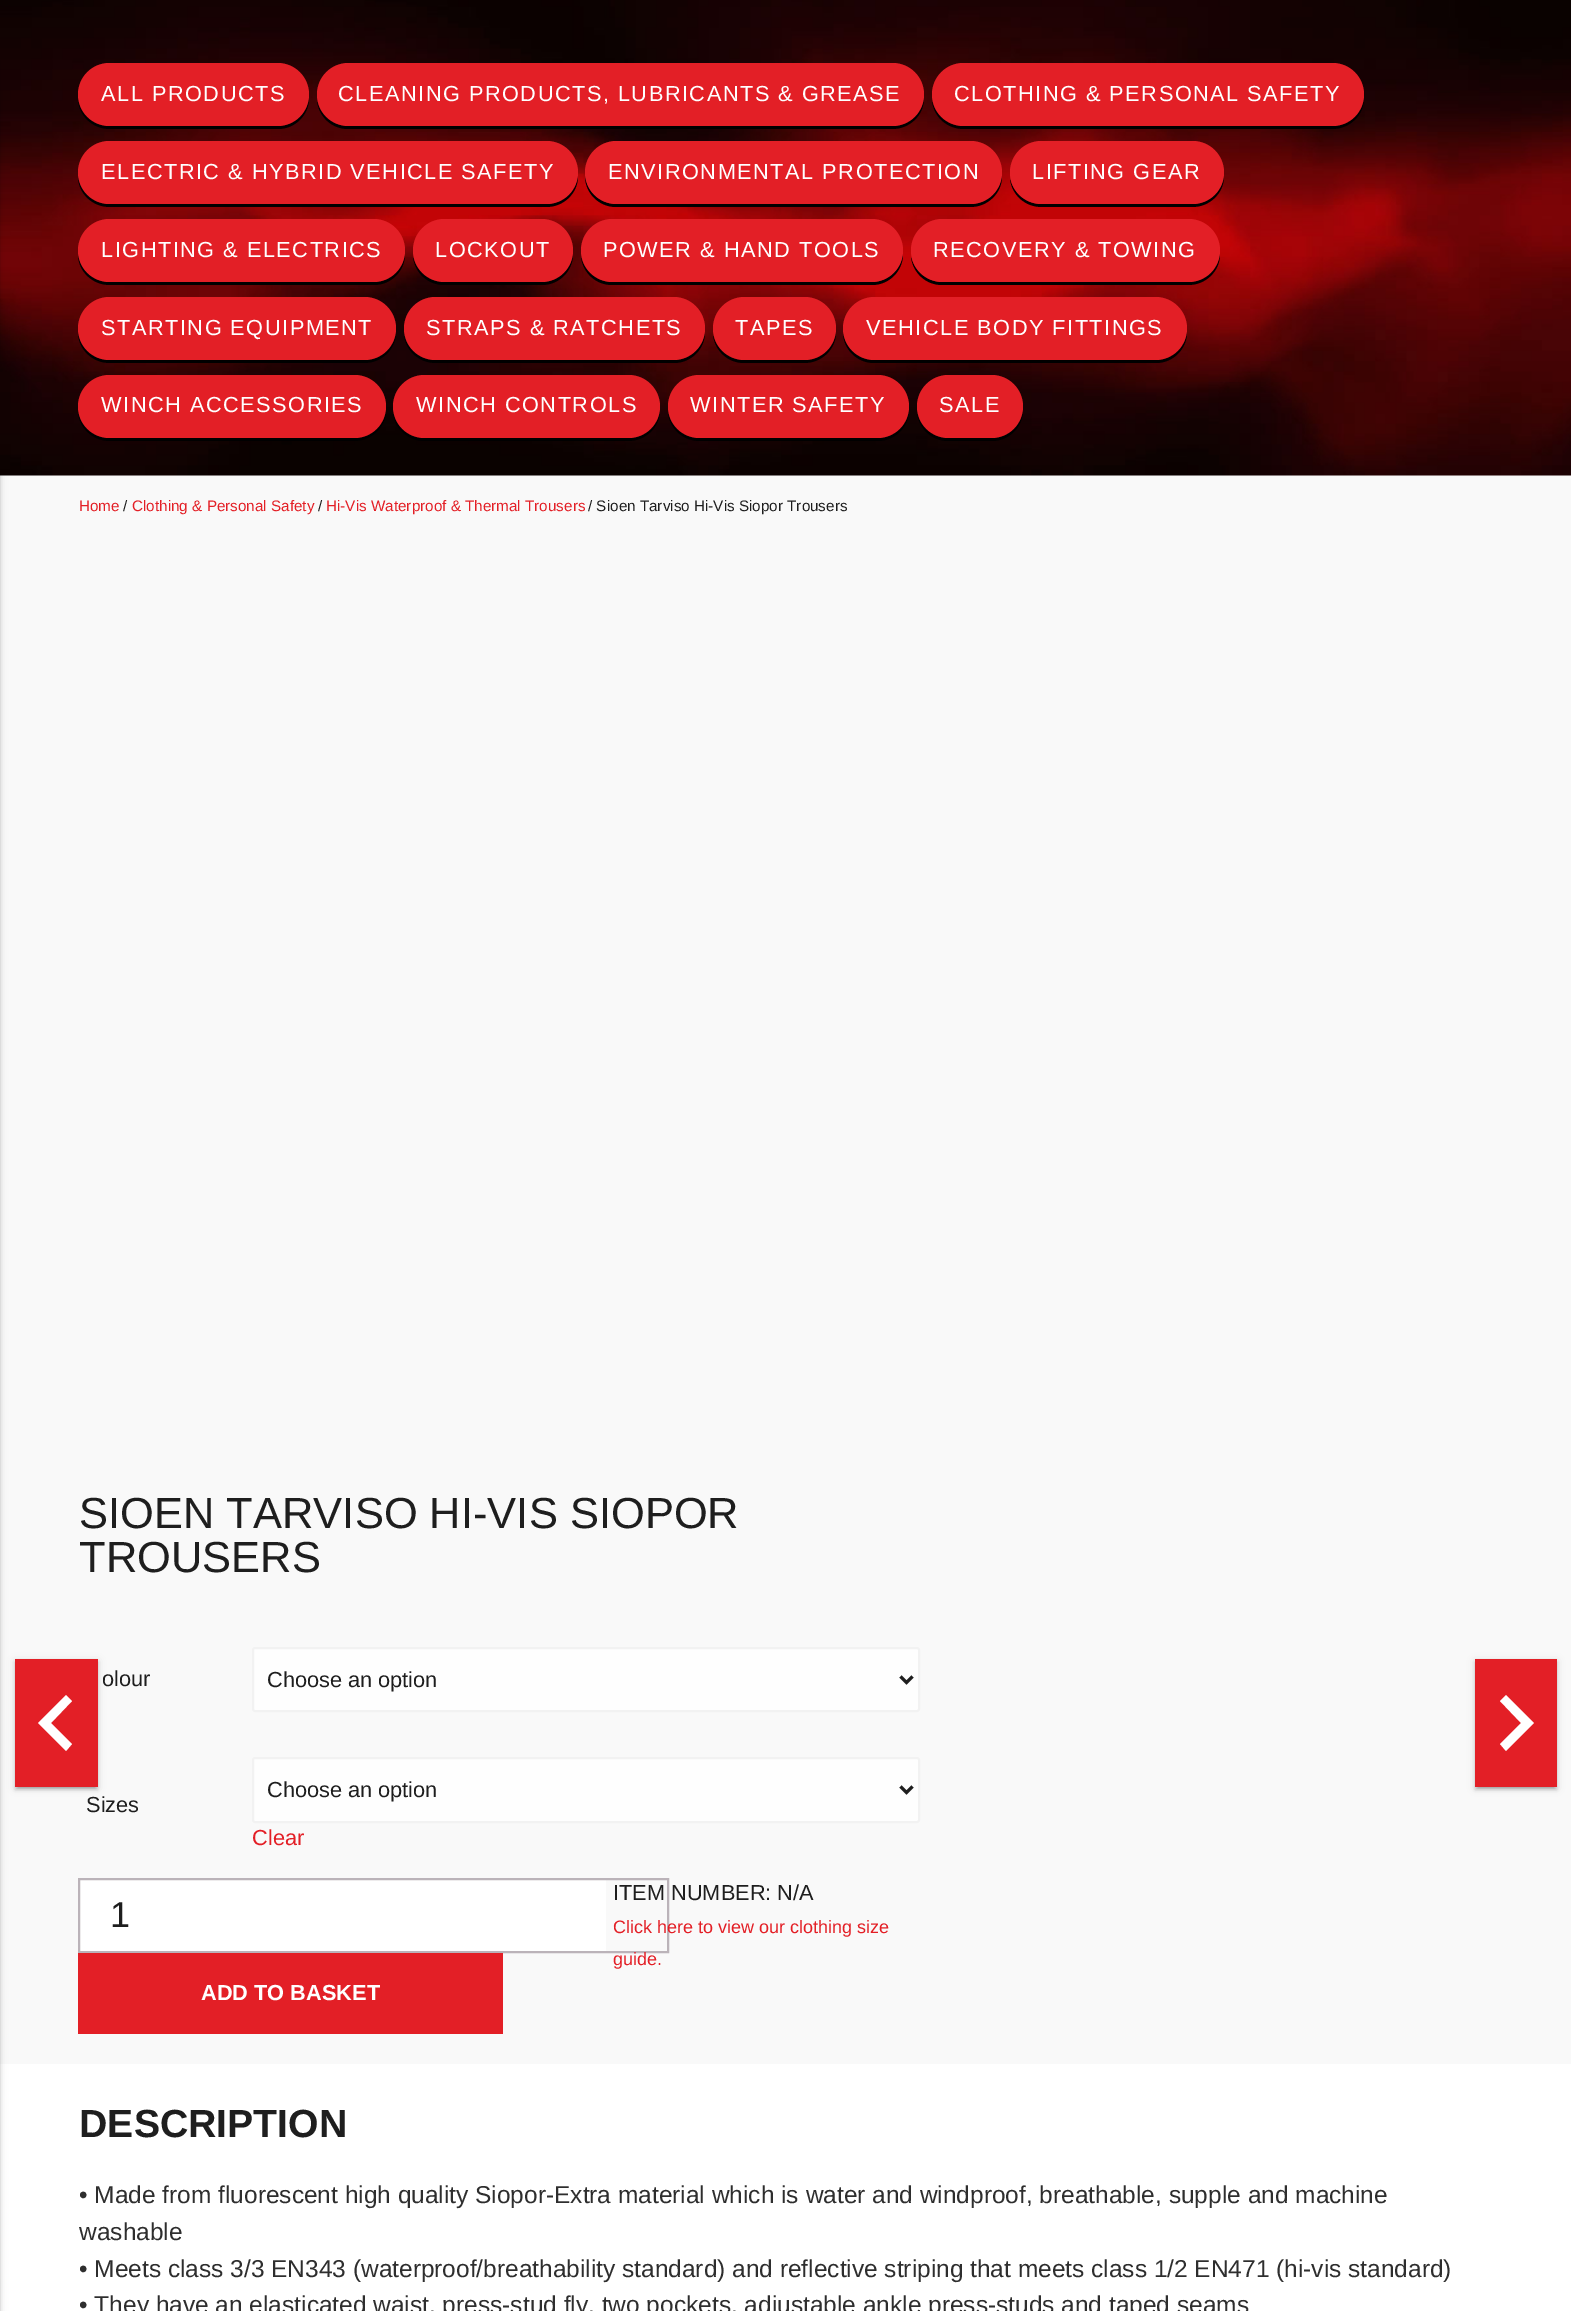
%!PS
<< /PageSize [1571 2311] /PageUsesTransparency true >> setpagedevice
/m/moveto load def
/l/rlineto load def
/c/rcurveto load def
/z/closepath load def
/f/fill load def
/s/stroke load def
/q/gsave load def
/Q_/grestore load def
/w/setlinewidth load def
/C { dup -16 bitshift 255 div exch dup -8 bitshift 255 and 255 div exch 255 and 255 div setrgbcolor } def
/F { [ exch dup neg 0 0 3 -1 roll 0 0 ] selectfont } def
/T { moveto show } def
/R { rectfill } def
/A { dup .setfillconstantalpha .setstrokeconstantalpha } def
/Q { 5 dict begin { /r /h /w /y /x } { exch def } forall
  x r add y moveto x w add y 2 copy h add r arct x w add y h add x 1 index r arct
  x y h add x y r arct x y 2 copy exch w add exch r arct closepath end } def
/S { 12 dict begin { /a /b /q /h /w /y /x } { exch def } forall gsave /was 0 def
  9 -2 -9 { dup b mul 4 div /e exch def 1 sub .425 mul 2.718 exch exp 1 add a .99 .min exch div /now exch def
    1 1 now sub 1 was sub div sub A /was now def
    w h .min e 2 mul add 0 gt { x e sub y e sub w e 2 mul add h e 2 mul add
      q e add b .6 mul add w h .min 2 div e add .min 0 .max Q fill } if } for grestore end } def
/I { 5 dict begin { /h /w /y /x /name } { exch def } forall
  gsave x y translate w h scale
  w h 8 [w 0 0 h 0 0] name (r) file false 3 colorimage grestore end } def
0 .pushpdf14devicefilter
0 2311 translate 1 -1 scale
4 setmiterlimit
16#F9F9F9 C
0 0 1571 2311 R
(1.rgb) 0 0 1571 476 I
16#FFFFFF C
0 2064 1571 247 R
16#000000 C
-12 2 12 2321 0 4 .12 S
-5 3 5 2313 0 1.5 .14 S
78 96 m 0 2 l 0 17 14 31 32 31 c 168 0 l 17 0 31 -14 31 -31 c 0 -2 l -1 17 -15 30 -31 30 c -168 0 l -17 0 -31 -13 -32 -30 c z f
16#E31F26 C
78 63 231 63 31.5 Q f
/LiberationSans-Regular 21.75 F
16#FFFFFF C
101 101 m 1.5 0 (ALL PRODUCTS) ashow
16#000000 C
317 101 m 2 16 15 28 31 28 c 544 0 l 18 0 32 -14 32 -31 c 0 -2 l -1 17 -15 30 -32 30 c -544 0 l -15 0 -28 -11 -31 -25 c z f
16#E31F26 C
317 63 607 63 31.5 Q f
16#FFFFFF C
338 101 m 1.5 0 (CLEANING PRODUCTS, LUBRICANTS & GREASE) ashow
16#000000 C
932 101 m 2 16 15 28 32 28 c 368 0 l 18 0 32 -14 32 -31 c -1 -7 l 1 3 l 0 18 -15 32 -32 32 c -369 0 l -15 0 -28 -11 -31 -25 c z f
16#E31F26 C
932 63 432 63 31.5 Q f
16#FFFFFF C
954 101 m 1.5 0 (CLOTHING & PERSONAL SAFETY) ashow
16#000000 C
78 174 m 0 2 l 0 17 14 31 32 31 c 436 0 l 18 0 32 -14 32 -31 c -1 -7 l 1 3 l 0 18 -15 32 -32 32 c -436 0 l -17 0 -31 -13 -32 -30 c z f
16#E31F26 C
78 141 500 63 31.5 Q f
16#FFFFFF C
101 179 m 1.5 0 (ELECTRIC & HYBRID VEHICLE SAFETY) ashow
16#000000 C
585 174 m 0 2 l 0 17 14 31 31 31 c 354 0 l 18 0 32 -14 32 -31 c 0 -2 l -1 17 -15 30 -32 30 c -354 0 l -16 0 -30 -13 -31 -30 c z f
16#E31F26 C
585 141 417 63 31.5 Q f
16#FFFFFF C
608 179 m 1.5 0 (ENVIRONMENTAL PROTECTION) ashow
16#000000 C
1010 179 m 2 16 15 28 32 28 c 150 0 l 18 0 32 -14 32 -31 c 0 -2 l -1 17 -15 30 -32 30 c -151 0 l -15 0 -28 -11 -31 -25 c z f
16#E31F26 C
1010 141 214 63 31.5 Q f
16#FFFFFF C
1032 179 m 1.5 0 (LIFTING GEAR) ashow
16#000000 C
78 252 m 0 2 l 0 17 14 31 32 31 c 264 0 l 17 0 31 -14 31 -31 c 0 -2 l -1 17 -15 30 -31 30 c -264 0 l -17 0 -31 -13 -32 -30 c z f
16#E31F26 C
78 219 327 63 31.5 Q f
16#FFFFFF C
101 257 m 1.5 0 (LIGHTING & ELECTRICS) ashow
16#000000 C
413 257 m 2 16 15 28 31 28 c 98 0 l 17 0 31 -14 31 -31 c 0 -2 l -1 17 -15 30 -31 30 c -98 0 l -15 0 -28 -11 -31 -25 c z f
16#E31F26 C
413 219 160 63 31.5 Q f
16#FFFFFF C
435 257 m 1.5 0 (LOCKOUT) ashow
16#000000 C
581 257 m 2 16 15 28 31 28 c 260 0 l 17 0 31 -14 31 -31 c 0 -2 l -1 17 -15 30 -31 30 c -260 0 l -15 0 -28 -11 -31 -25 c z f
16#E31F26 C
581 219 322 63 31.5 Q f
16#FFFFFF C
603 257 m 1.5 0 (POWER & HAND TOOLS) ashow
16#000000 C
911 257 m 2 16 15 28 31 28 c 246 0 l 18 0 32 -14 32 -31 c -1 -7 l 1 3 l 0 18 -15 32 -32 32 c -246 0 l -15 0 -28 -11 -31 -25 c z f
16#E31F26 C
911 219 309 63 31.5 Q f
16#FFFFFF C
933 257 m 1.5 0 (RECOVERY & TOWING) ashow
16#000000 C
78 330 m 0 2 l 0 17 14 31 32 31 c 254 0 l 18 0 32 -14 32 -31 c 0 -2 l -1 17 -15 30 -32 30 c -254 0 l -17 0 -31 -13 -32 -30 c z f
16#E31F26 C
78 297 318 63 31.5 Q f
16#FFFFFF C
101 335 m 1.5 0 (STARTING EQUIPMENT) ashow
16#000000 C
404 335 m 2 16 15 28 32 28 c 238 0 l 17 0 31 -14 31 -31 c 0 -2 l -1 17 -15 30 -31 30 c -239 0 l -15 0 -28 -11 -31 -25 c z f
16#E31F26 C
404 297 301 63 31.5 Q f
16#FFFFFF C
426 335 m 1.5 0 (STRAPS & RATCHETS) ashow
16#000000 C
713 335 m 2 16 15 28 31 28 c 60 0 l 18 0 32 -14 32 -31 c -1 -7 l 1 3 l 0 18 -15 32 -32 32 c -60 0 l -15 0 -28 -11 -31 -25 c z f
16#E31F26 C
713 297 123 63 31.5 Q f
16#FFFFFF C
735 335 m 1.5 0 (TAPES) ashow
16#000000 C
843 330 m 0 2 l 0 17 14 31 31 31 c 282 0 l 17 0 31 -14 31 -31 c -1 -7 l 0 3 l 0 18 -14 32 -31 32 c -281 0 l -16 0 -30 -13 -31 -30 c z f
16#E31F26 C
843 297 344 63 31.5 Q f
16#FFFFFF C
866 335 m 1.5 0 (VEHICLE BODY FITTINGS) ashow
16#000000 C
78 408 m 0 2 l 0 17 14 31 32 31 c 244 0 l 18 0 32 -14 32 -31 c -1 -7 l 1 3 l 0 18 -15 32 -32 32 c -244 0 l -17 0 -31 -13 -32 -30 c z f
16#E31F26 C
78 375 308 63 31.5 Q f
16#FFFFFF C
101 412 m 1.5 0 (WINCH ACCESSORIES) ashow
16#000000 C
393 408 m 0 2 l 0 17 14 31 31 31 c 204 0 l 18 0 32 -14 32 -31 c 0 -2 l -1 17 -15 30 -32 30 c -204 0 l -16 0 -30 -13 -31 -30 c z f
16#E31F26 C
393 375 267 63 31.5 Q f
16#FFFFFF C
416 412 m 1.5 0 (WINCH CONTROLS) ashow
16#000000 C
668 413 m 2 16 15 28 32 28 c 178 0 l 17 0 31 -14 31 -31 c 0 -2 l -1 17 -15 30 -31 30 c -179 0 l -15 0 -28 -11 -31 -25 c z f
16#E31F26 C
668 375 241 63 31.5 Q f
16#FFFFFF C
690 412 m 1.5 0 (WINTER SAFETY) ashow
16#000000 C
917 413 m 2 16 15 28 31 28 c 44 0 l 17 0 31 -14 31 -31 c 0 -2 l -1 17 -15 30 -31 30 c -44 0 l -15 0 -28 -11 -31 -25 c z f
16#E31F26 C
917 375 106 63 31.5 Q f
16#FFFFFF C
939 412 m 1.5 0 (SALE) ashow
/LiberationSans-Regular 15.25 F
16#E31F26 C
(Home) 79 511 T
16#1E1E1E C
(/) 123 511 T
16#E31F26 C
(Clothing & Personal Safety) 132 511 T
16#1E1E1E C
(/) 318 511 T
16#E31F26 C
(Hi-Vis Waterproof & Thermal Trousers) 326 511 T
16#1E1E1E C
(/ Sioen Tarviso Hi-Vis Siopor Trousers) 588 511 T
16#000000 C
18 1667 77 121 0 1 .2 S
15 1661 83 127 0 4 .12 S
15 1662 83 128 0 1.5 .14 S
16#E31F26 C
15 1659 83 128 R
16#FFFFFF C
72 1701 m -21 22 l 21 21 l -6 7 l -28 -28 l 28 -28 l z f
/LiberationSans-Regular 43.5 F
16#1E1E1E C
(SIOEN TARVISO HI-VIS SIOPOR) 79 1528 T
(TROUSERS) 79 1572 T
/LiberationSans-Regular 21.75 F
(olour) 102 1686 T
16#FEFEFE C
253 1648 666 63 2 Q q f Q_
16#F2F2F2 C
2 w
s
16#1E1E1E C
3 w
900.5 1676.5 m 6 6 l 6 -6 l s
(Choose an option) 267 1687 T
(Sizes) 86 1812 T
16#FEFEFE C
253 1758 666 64 2 Q q f Q_
16#F2F2F2 C
2 w
s
16#1E1E1E C
3 w
900.5 1786.5 m 6 6 l 6 -6 l s
(Choose an option) 267 1797 T
16#E31F26 C
(Clear) 252 1845 T
16#FFFFFF C
80 1880 526 71 R
16#BBB3B9 C
2 w
79 1879 589 73 rectstroke
/LiberationSans-Regular 36 F
16#1E1E1E C
(1) 110 1927 T
16#E31F26 C
78 1953 425 81 R
/LiberationSans-Bold 21.75 F
16#FFFFFF C
(ADD TO BASKET) 201 2000 T
/LiberationSans-Regular 21.75 F
16#1E1E1E C
(ITEM NUMBER: N/A) 613 1900 T
/LiberationSans-Regular 18 F
16#E31F26 C
(Click here to view our clothing size) 613 1933 T
(guide.) 613 1965 T
/LiberationSans-Bold 39.25 F
16#1E1E1E C
(DESCRIPTION) 79 2137 T
/LiberationSans-Regular 24.47 F
16#2E2E2E C
(• Made from fluorescent high quality Siopor-Extra material which is water and windproof, breathable, supple and machine) 79 2203 T
(washable) 79 2240 T
(• Meets class 3/3 EN343 \(waterproof/breathability standard\) and reflective striping that meets class 1/2 EN471 \(hi-vis standard\)) 79 2277 T
(• They have an elasticated waist, press-stud fly, two pockets, adjustable ankle press-studs and taped seams) 79 2313 T
16#000000 C
1478 1667 76 121 0 1 .2 S
1475 1661 82 127 0 4 .12 S
1475 1662 82 128 0 1.5 .14 S
16#E31F26 C
1475 1659 82 128 R
16#FFFFFF C
1506 1695 m 28 28 l -28 28 l -6 -7 l 21 -21 l -21 -22 l z f
.poppdf14devicefilter showpage
